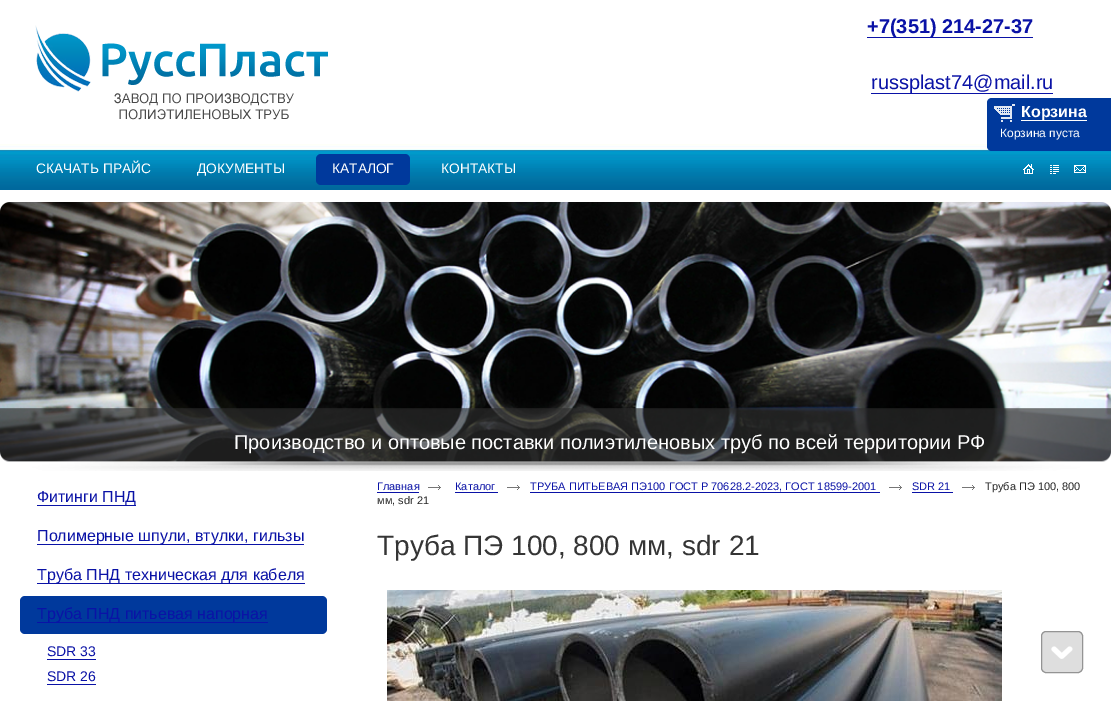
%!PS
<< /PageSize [1111 701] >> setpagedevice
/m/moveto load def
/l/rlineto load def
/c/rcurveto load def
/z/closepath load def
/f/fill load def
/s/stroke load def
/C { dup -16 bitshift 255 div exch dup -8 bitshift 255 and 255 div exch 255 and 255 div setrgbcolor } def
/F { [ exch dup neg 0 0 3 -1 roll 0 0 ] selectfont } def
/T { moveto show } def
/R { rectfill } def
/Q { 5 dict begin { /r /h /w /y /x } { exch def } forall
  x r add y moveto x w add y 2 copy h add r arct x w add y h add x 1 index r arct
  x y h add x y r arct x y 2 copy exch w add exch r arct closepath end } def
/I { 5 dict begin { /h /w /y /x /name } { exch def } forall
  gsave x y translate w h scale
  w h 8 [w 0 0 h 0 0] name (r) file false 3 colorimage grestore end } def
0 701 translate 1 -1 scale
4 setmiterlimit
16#FFFFFF C
0 0 1111 701 R
(1.rgb) 0 144 1111 46 I
(2.rgb) 35 25 293 95 I
16#0A12A6 C
867 37 166 1 R
/LiberationSans-Bold 20 F
(+7\(351\) 214-27-37) 867 33 T
871 93 182 1 R
/LiberationSans-Regular 20 F
(russplast74@mail.ru) 871 89 T
/LiberationSans-Regular 13.75 F
16#FFFFFF C
(СКАЧАТЬ ПРАЙС) 36 173 T
(ДОКУМЕНТЫ) 197 173 T
16#00399C C
316 154 94 31 5 Q f
16#FFFFFF C
(КАТАЛОГ) 332 173 T
(КОНТАКТЫ) 441 173 T
(3.rgb) 1023 164 11 10 I
(4.rgb) 1050 165 9 9 I
(5.rgb) 1074 165 12 8 I
16#00399C C
992 98 m 119 0 l 0 53 l -119 0 l -3 0 -5 -2 -5 -5 c 0 -43 l 0 -3 2 -5 5 -5 c z f
(6.rgb) 994 104 21 18 I
16#FFFFFF C
1021 120 66 1 R
/LiberationSans-Bold 16 F
(Корзина) 1021 117 T
/LiberationSans-Regular 12 F
(Корзина пуста) 1000 137 T
(7.rgb) 0 202 1111 269 I
/LiberationSans-Regular 20 F
(Производство и оптовые поставки полиэтиленовых труб по всей территории РФ) 234 449 T
16#0A12A6 C
37 505 99 1 R
/LiberationSans-Regular 16 F
(Фитинги ПНД) 37 502 T
37 544 267 1 R
(Полимерные шпули, втулки, гильзы) 37 541 T
37 583 268 1 R
(Труба ПНД техническая для кабеля) 37 580 T
16#00399C C
20 596 307 38 5 Q f
16#0A12A6 C
37 622 231 1 R
(Труба ПНД питьевая напорная) 37 619 T
/LiberationSans-Regular 14 F
(SDR 33) 47 656 T
47 659 49 1 R
(SDR 26) 47 681 T
47 684 49 1 R
/LiberationSans-Regular 11 F
(Главная) 377 490 T
377 492 42 1 R
(8.rgb) 428 485 13 5 I
(Каталог) 455 490 T
455 492 43 1 R
(8.rgb) 507 485 13 5 I
(ТРУБА ПИТЬЕВАЯ ПЭ100 ГОСТ Р 70628.2-2023, ГОСТ 18599-2001) 530 490 T
530 492 350 1 R
(8.rgb) 889 485 13 5 I
(SDR 21) 912 490 T
912 492 41 1 R
(8.rgb) 962 485 13 5 I
16#272727 C
(Труба ПЭ 100, 800) 985 490 T
(мм, sdr 21) 377 504 T
/LiberationSans-Regular 28 F
16#353535 C
(Труба ПЭ 100, 800 мм, sdr 21) 377 555 T
(9.rgb) 387 590 615 111 I
(10.rgb) 1041 631 42 42 I
16#949494 C
1041.5 631.5 41 41 4.5 Q s
showpage
